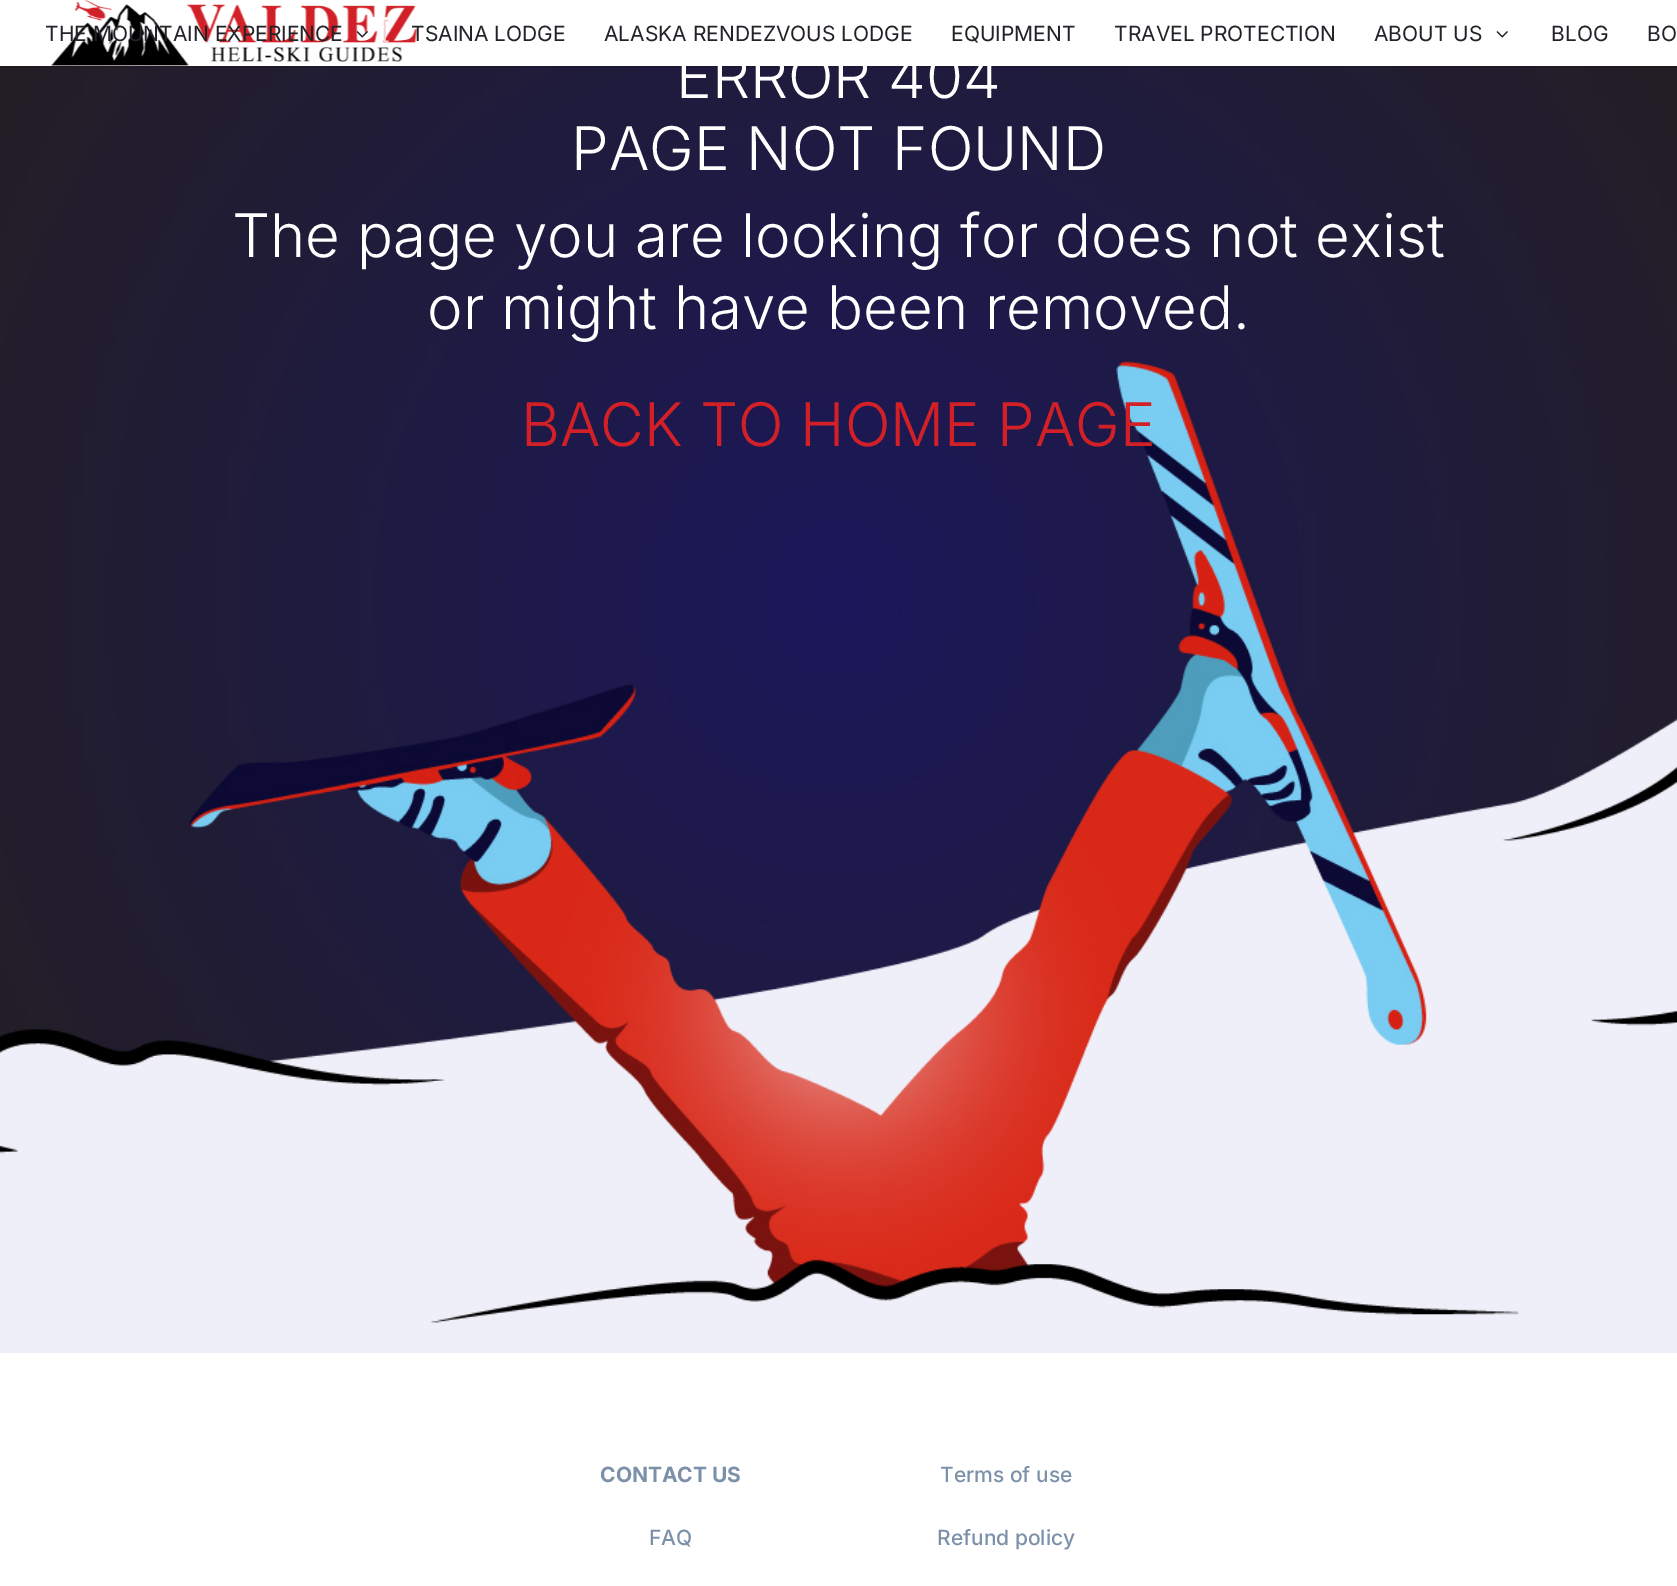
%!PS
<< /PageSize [1677 1586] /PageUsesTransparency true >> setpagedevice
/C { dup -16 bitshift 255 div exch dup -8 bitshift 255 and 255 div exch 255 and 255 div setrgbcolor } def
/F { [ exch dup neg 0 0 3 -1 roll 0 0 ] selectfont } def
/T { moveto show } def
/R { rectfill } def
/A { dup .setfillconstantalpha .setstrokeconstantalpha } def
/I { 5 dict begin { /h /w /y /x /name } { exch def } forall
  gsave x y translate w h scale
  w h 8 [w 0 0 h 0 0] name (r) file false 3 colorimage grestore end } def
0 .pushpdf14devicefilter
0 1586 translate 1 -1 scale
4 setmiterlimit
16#FFFFFF C
0 0 1677 1586 R
(4.rgb) 0 66 1677 1287 I
0.1 A
16#000000 C
0 66 1677 2 R
1 A
(1.rgb) 51 0 367 66 I
/Inter-Regular 21 F
16#222328 C
(THE MOUNTAIN EXPERIENCE) 45 41 T
(2.rgb) 356 31 12 7 I
/Inter-Regular 25 F
16#F5D0D2 C
([) 381 39 T
/Inter-Regular 21 F
16#222328 C
(TSAINA LODGE) 411 41 T
(ALASKA RENDEZVOUS LODGE) 604 41 T
(EQUIPMENT) 951 41 T
(TRAVEL PROTECTION) 1114 41 T
(ABOUT US) 1374 41 T
(3.rgb) 1496 31 12 7 I
(BLOG) 1551 41 T
(BO) 1647 41 T
/Inter-Light 60 F
16#FFFFFF C
(ERROR 404) 676 98 T
(PAGE NOT FOUND) 571 170 T
(The page you are looking for does not exist) 232 257 T
(or might have been removed.) 427 329 T
16#D32026 C
(BACK TO HOME PAGE) 521 446 T
/Inter-Bold 21 F
16#7C91A9 C
(CONTACT US) 600 1482 T
/Inter-Medium 21 F
(FAQ) 649 1545 T
(Terms of use) 940 1482 T
(Refund policy) 937 1545 T
(5.rgb) 1337 1453 168 118 I
.poppdf14devicefilter showpage
